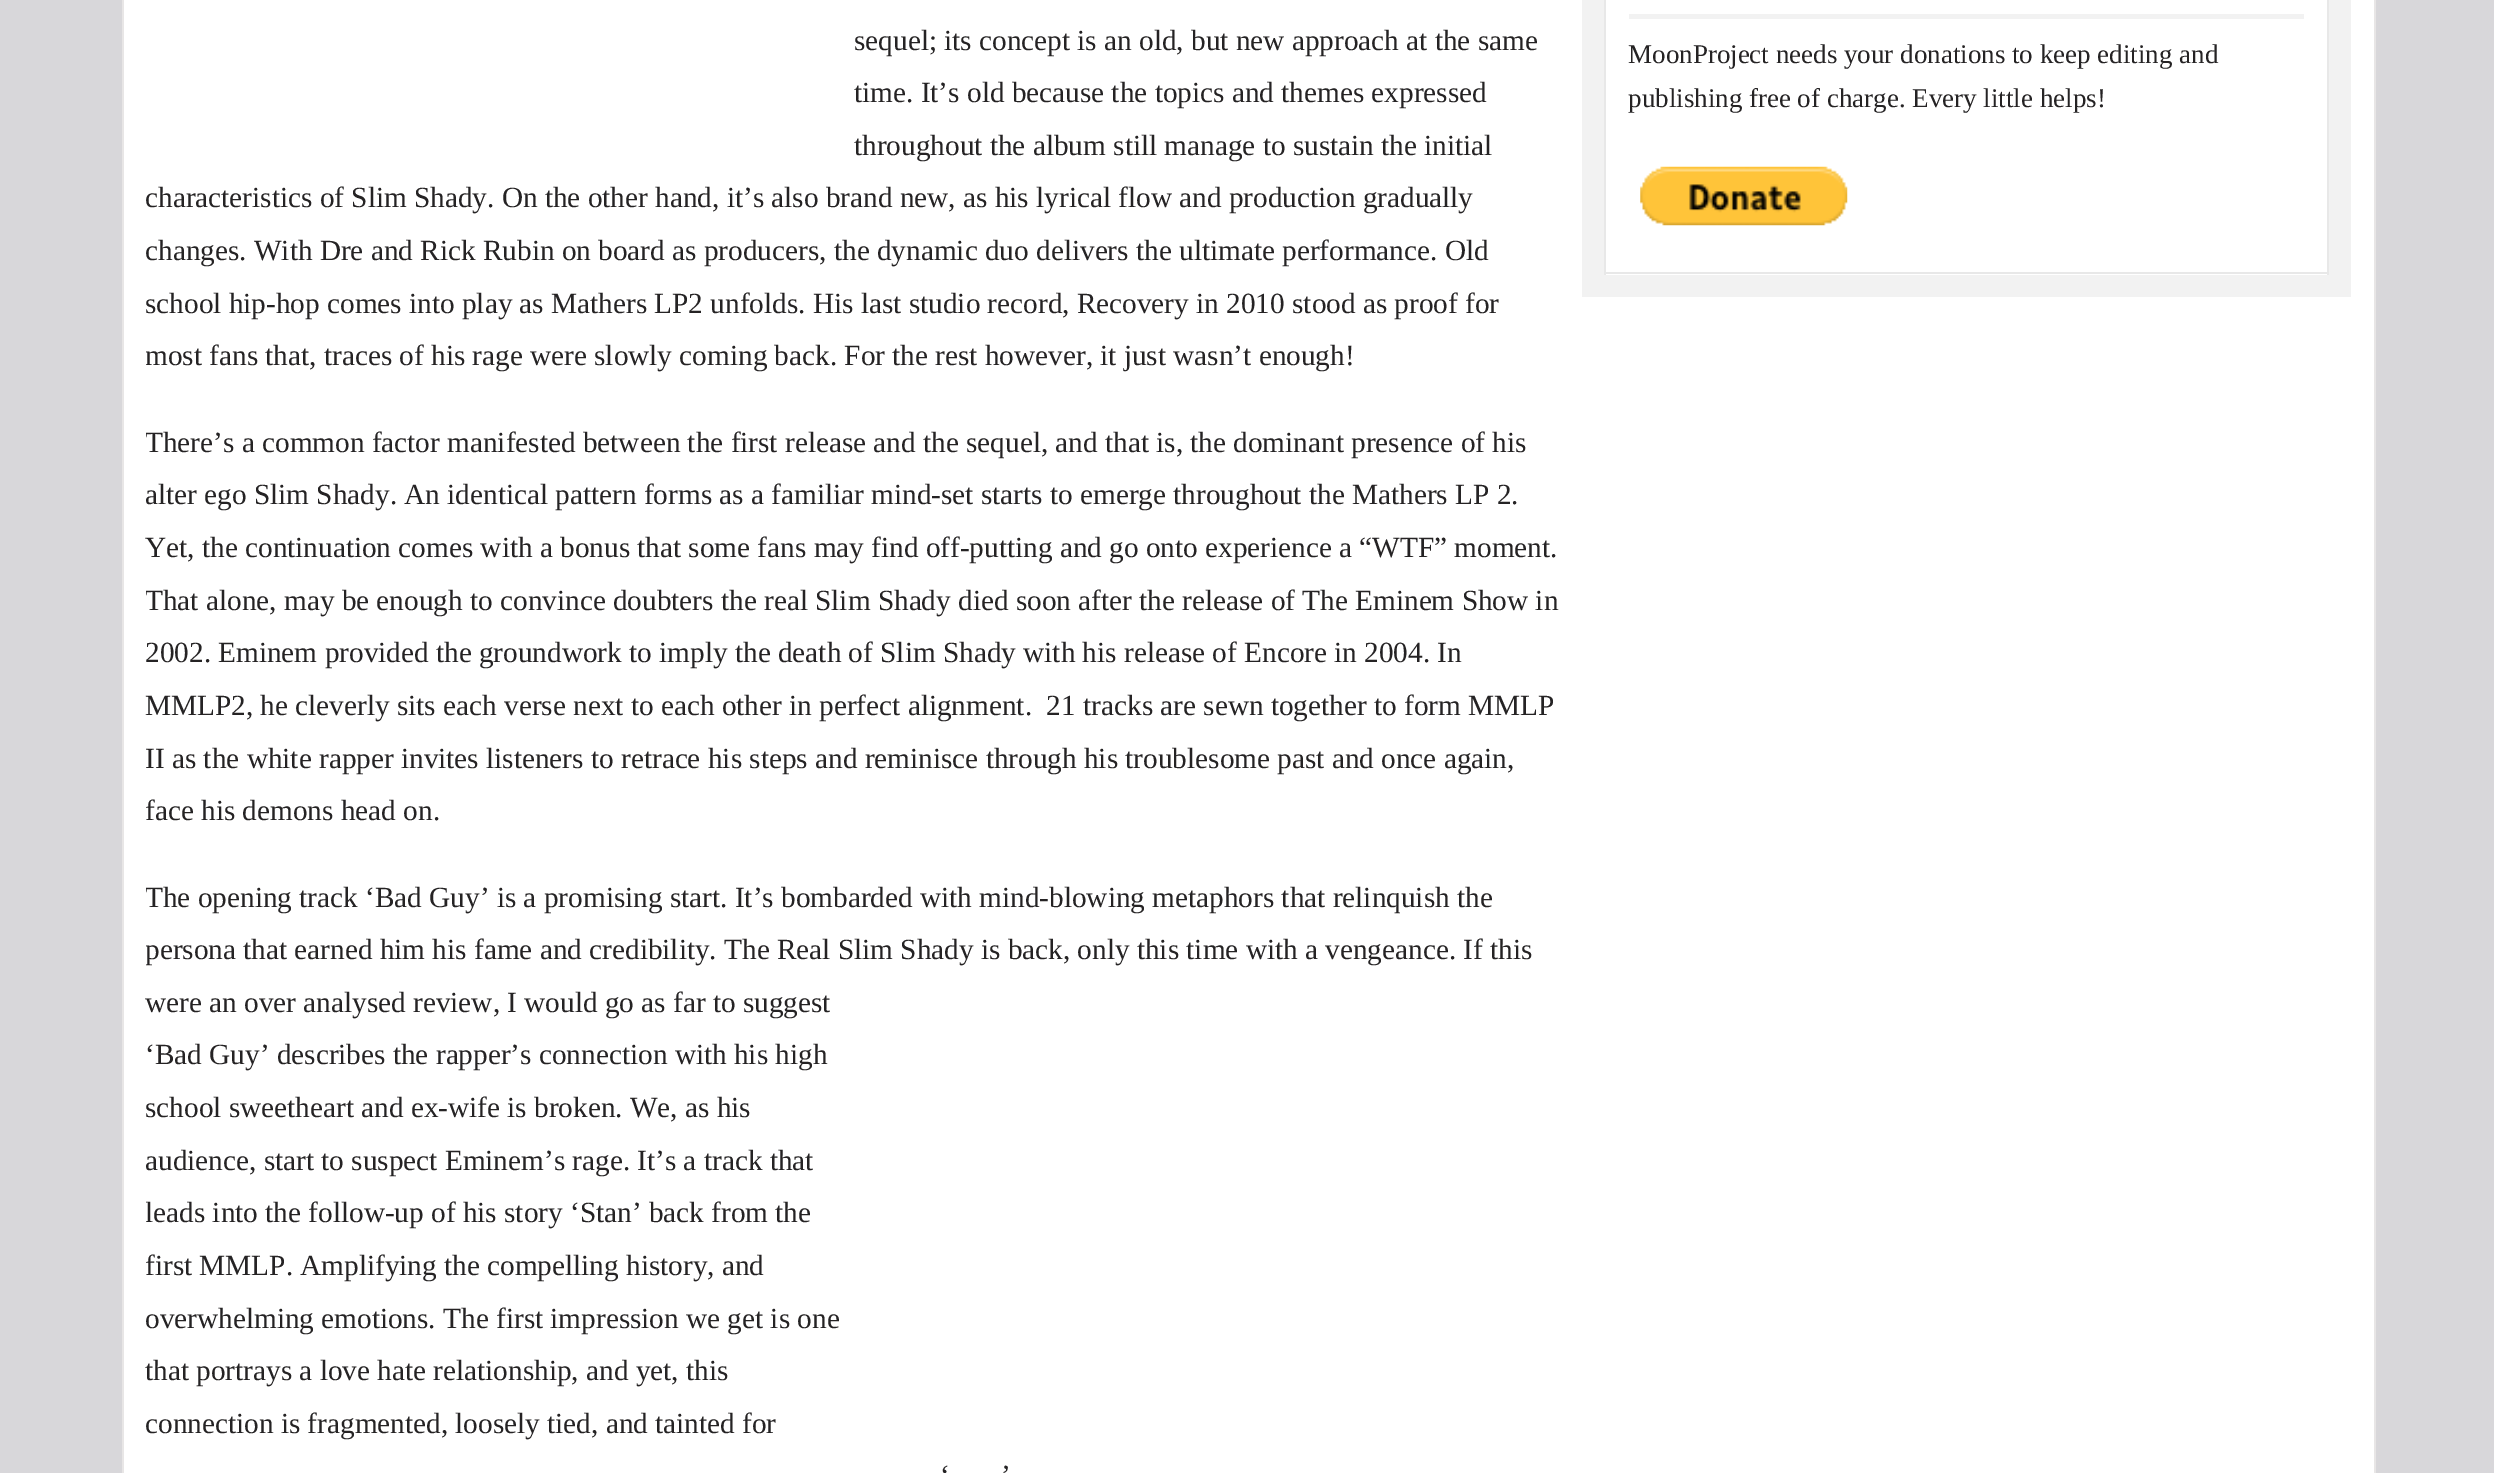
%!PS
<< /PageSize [2494 1473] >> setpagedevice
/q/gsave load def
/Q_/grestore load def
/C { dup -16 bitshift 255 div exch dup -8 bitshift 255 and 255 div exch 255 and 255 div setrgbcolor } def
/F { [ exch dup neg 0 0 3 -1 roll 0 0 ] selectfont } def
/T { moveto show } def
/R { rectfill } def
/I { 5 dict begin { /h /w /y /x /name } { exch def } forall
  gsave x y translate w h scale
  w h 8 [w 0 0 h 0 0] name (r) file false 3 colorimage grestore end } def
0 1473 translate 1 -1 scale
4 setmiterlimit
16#D8D7DA C
0 0 2494 1473 R
16#FFFFFF C
124 0 2250 1473 R
16#E8E6E6 C
2374 0 2 1473 R
122 0 2 1473 R
/LiberationSerif-Regular 29.25 F
16#252324 C
(sequel; its concept is an old, but new approach at the same) 854 50 T
(time. It’s old because the topics and themes expressed) 854 102 T
(throughout the album still manage to sustain the initial) 854 155 T
(characteristics of Slim Shady. On the other hand, it’s also brand new, as his lyrical flow and production gradually) 145 207 T
(changes. With Dre and Rick Rubin on board as producers, the dynamic duo delivers the ultimate performance. Old) 145 260 T
(school hip-hop comes into play as Mathers LP2 unfolds. His last studio record, Recovery in 2010 stood as proof for) 145 313 T
q
146 0 1418 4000 rectclip
(most fans that, traces of his rage were slowly coming back. For the rest however, it just wasn’t enough!) 145 365 T
(There’s a common factor manifested between the first release and the sequel, and that is, the dominant presence of his) 145 452 T
Q_
(alter ego Slim Shady. An identical pattern forms as a familiar mind-set starts to emerge throughout the Mathers LP 2.) 145 504 T
(Yet, the continuation comes with a bonus that some fans may find off-putting and go onto experience a “WTF” moment.) 145 557 T
q
146 0 1418 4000 rectclip
(That alone, may be enough to convince doubters the real Slim Shady died soon after the release of The Eminem Show in) 145 610 T
Q_
(2002. Eminem provided the groundwork to imply the death of Slim Shady with his release of Encore in 2004. In) 145 662 T
(MMLP2, he cleverly sits each verse next to each other in perfect alignment.  21 tracks are sewn together to form MMLP) 145 715 T
(II as the white rapper invites listeners to retrace his steps and reminisce through his troublesome past and once again,) 145 768 T
(face his demons head on.) 145 820 T
q
146 0 1418 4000 rectclip
(The opening track ‘Bad Guy’ is a promising start. It’s bombarded with mind-blowing metaphors that relinquish the) 145 907 T
(persona that earned him his fame and credibility. The Real Slim Shady is back, only this time with a vengeance. If this) 145 959 T
Q_
(were an over analysed review, I would go as far to suggest) 145 1012 T
(‘Bad Guy’ describes the rapper’s connection with his high) 145 1064 T
(school sweetheart and ex-wife is broken. We, as his) 145 1117 T
(audience, start to suspect Eminem’s rage. It’s a track that) 145 1170 T
q
146 0 1418 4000 rectclip
(leads into the follow-up of his story ‘Stan’ back from the) 145 1222 T
Q_
(first MMLP. Amplifying the compelling history, and) 145 1275 T
(overwhelming emotions. The first impression we get is one) 145 1328 T
(that portrays a love hate relationship, and yet, this) 145 1380 T
(connection is fragmented, loosely tied, and tainted for) 145 1433 T
(‘) 940 1485 T
(’) 1001 1485 T
16#F2F2F2 C
1582 0 769 297 R
16#FFFFFF C
1606 0 721 275 R
16#E8E8E8 C
2327 0 2 275 R
1604 272 725 2 R
1604 0 2 275 R
16#F2F2F2 C
1629 14 675 5 R
/LiberationSerif-Regular 27 F
16#252324 C
(MoonProject needs your donations to keep editing and) 1628 63 T
(publishing free of charge. Every little helps!) 1628 107 T
(1.rgb) 1640 166 208 60 I
showpage
